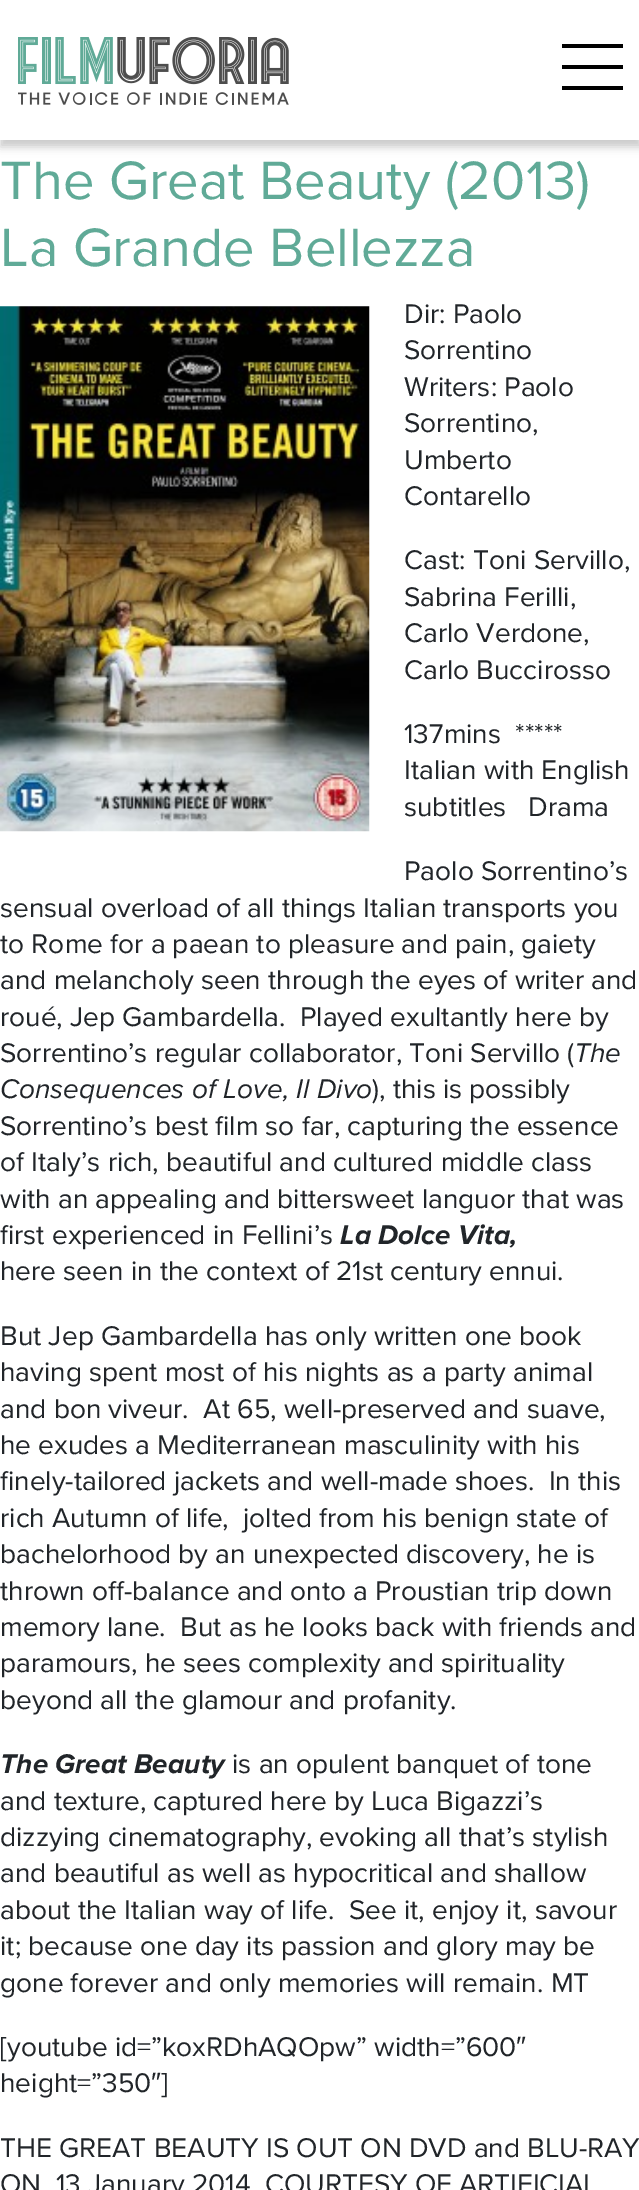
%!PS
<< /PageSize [639 2190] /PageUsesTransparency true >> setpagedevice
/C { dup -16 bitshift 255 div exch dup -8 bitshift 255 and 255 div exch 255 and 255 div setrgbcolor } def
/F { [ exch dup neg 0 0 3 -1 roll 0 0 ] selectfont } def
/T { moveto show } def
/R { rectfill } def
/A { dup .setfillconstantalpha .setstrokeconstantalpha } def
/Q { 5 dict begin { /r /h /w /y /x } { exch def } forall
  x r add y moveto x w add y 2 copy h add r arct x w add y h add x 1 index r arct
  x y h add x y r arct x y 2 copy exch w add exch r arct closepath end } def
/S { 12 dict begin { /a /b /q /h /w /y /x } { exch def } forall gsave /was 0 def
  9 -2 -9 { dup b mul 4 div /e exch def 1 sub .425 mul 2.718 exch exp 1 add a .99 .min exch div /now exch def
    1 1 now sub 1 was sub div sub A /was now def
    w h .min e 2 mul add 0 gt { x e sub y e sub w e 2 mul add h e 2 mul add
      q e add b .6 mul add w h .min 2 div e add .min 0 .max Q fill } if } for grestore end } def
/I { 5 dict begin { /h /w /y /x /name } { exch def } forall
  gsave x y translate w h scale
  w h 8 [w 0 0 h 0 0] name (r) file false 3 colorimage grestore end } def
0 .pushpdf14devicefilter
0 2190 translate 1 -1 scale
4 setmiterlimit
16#FFFFFF C
0 0 639 2190 R
16#4D4D4D C
0 7 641 140 0 4.5 .3 S
16#FFFFFF C
0 0 639 140 R
(1.rgb) 18 37 271 68 I
16#000000 C
562 65 61 4 R
562 44 61 4 R
562 86 61 4 R
/ProximaNova-Regular 56 F
16#60AA97 C
(The Great Beauty \(2013\)) 0 199 T
(La Grande Bellezza) 0 266 T
(2.rgb) 0 306 370 526 I
/ProximaNova-Regular 28 F
16#212529 C
(Dir: Paolo) 404 323 T
(Sorrentino) 404 359 T
(Writers: Paolo) 404 396 T
(Sorrentino,) 404 432 T
(Umberto) 404 469 T
(Contarello) 404 505 T
(Cast: Toni Servillo,) 404 569 T
(Sabrina Ferilli,) 404 606 T
(Carlo Verdone,) 404 642 T
(Carlo Buccirosso) 404 679 T
(137mins  *****) 404 743 T
(Italian with English) 404 779 T
(subtitles   Drama) 404 816 T
(Paolo Sorrentino’s) 404 880 T
(sensual overload of all things Italian transports you) 0 917 T
(to Rome for a paean to pleasure and pain, gaiety) 0 953 T
(and melancholy seen through the eyes of writer and) 0 989 T
(roué, Jep Gambardella.  Played exultantly here by) 0 1026 T
(Sorrentino’s regular collaborator, Toni Servillo \() 0 1062 T
/ProximaNova-Italic 28 F
(The) 574 1062 T
(Consequences of Love, Il Divo) 0 1098 T
/ProximaNova-Regular 28 F
(\), this is possibly) 372 1098 T
(Sorrentino’s best film so far, capturing the essence) 0 1135 T
(of Italy’s rich, beautiful and cultured middle class) 0 1171 T
(with an appealing and bittersweet languor that was) 0 1208 T
(first experienced in Fellini’s) 0 1244 T
/ProximaNova-BoldItalic 28 F
(La Dolce Vita,) 340 1244 T
/ProximaNova-Regular 28 F
(here seen in the context of 21st century ennui.) 0 1280 T
(But Jep Gambardella has only written one book) 0 1345 T
(having spent most of his nights as a party animal) 0 1381 T
(and bon viveur.  At 65, well-preserved and suave,) 0 1418 T
(he exudes a Mediterranean masculinity with his) 0 1454 T
(finely-tailored jackets and well-made shoes.  In this) 0 1490 T
(rich Autumn of life,  jolted from his benign state of) 0 1527 T
(bachelorhood by an unexpected discovery, he is) 0 1563 T
(thrown off-balance and onto a Proustian trip down) 0 1600 T
(memory lane.  But as he looks back with friends and) 0 1636 T
(paramours, he sees complexity and spirituality) 0 1672 T
(beyond all the glamour and profanity.) 0 1709 T
/ProximaNova-BoldItalic 28 F
(The Great Beauty) 0 1773 T
/ProximaNova-Regular 28 F
(is an opulent banquet of tone) 232 1773 T
(and texture, captured here by Luca Bigazzi’s) 0 1810 T
(dizzying cinematography, evoking all that’s stylish) 0 1846 T
(and beautiful as well as hypocritical and shallow) 0 1882 T
(about the Italian way of life.  See it, enjoy it, savour) 0 1919 T
(it; because one day its passion and glory may be) 0 1955 T
(gone forever and only memories will remain. MT) 0 1992 T
([youtube id=”koxRDhAQOpw” width=”600) 0 2056 T
/LiberationSans-Regular 28 F
(″) 516 2056 T
/ProximaNova-Regular 28 F
(height=”350) 0 2092 T
/LiberationSans-Regular 28 F
(″) 151 2092 T
/ProximaNova-Regular 28 F
(]) 161 2092 T
(THE GREAT BEAUTY IS OUT ON DVD and BLU-RAY) 0 2157 T
(ON  13 January 2014  COURTESY OF ARTIFICIAL) 0 2193 T
.poppdf14devicefilter showpage
